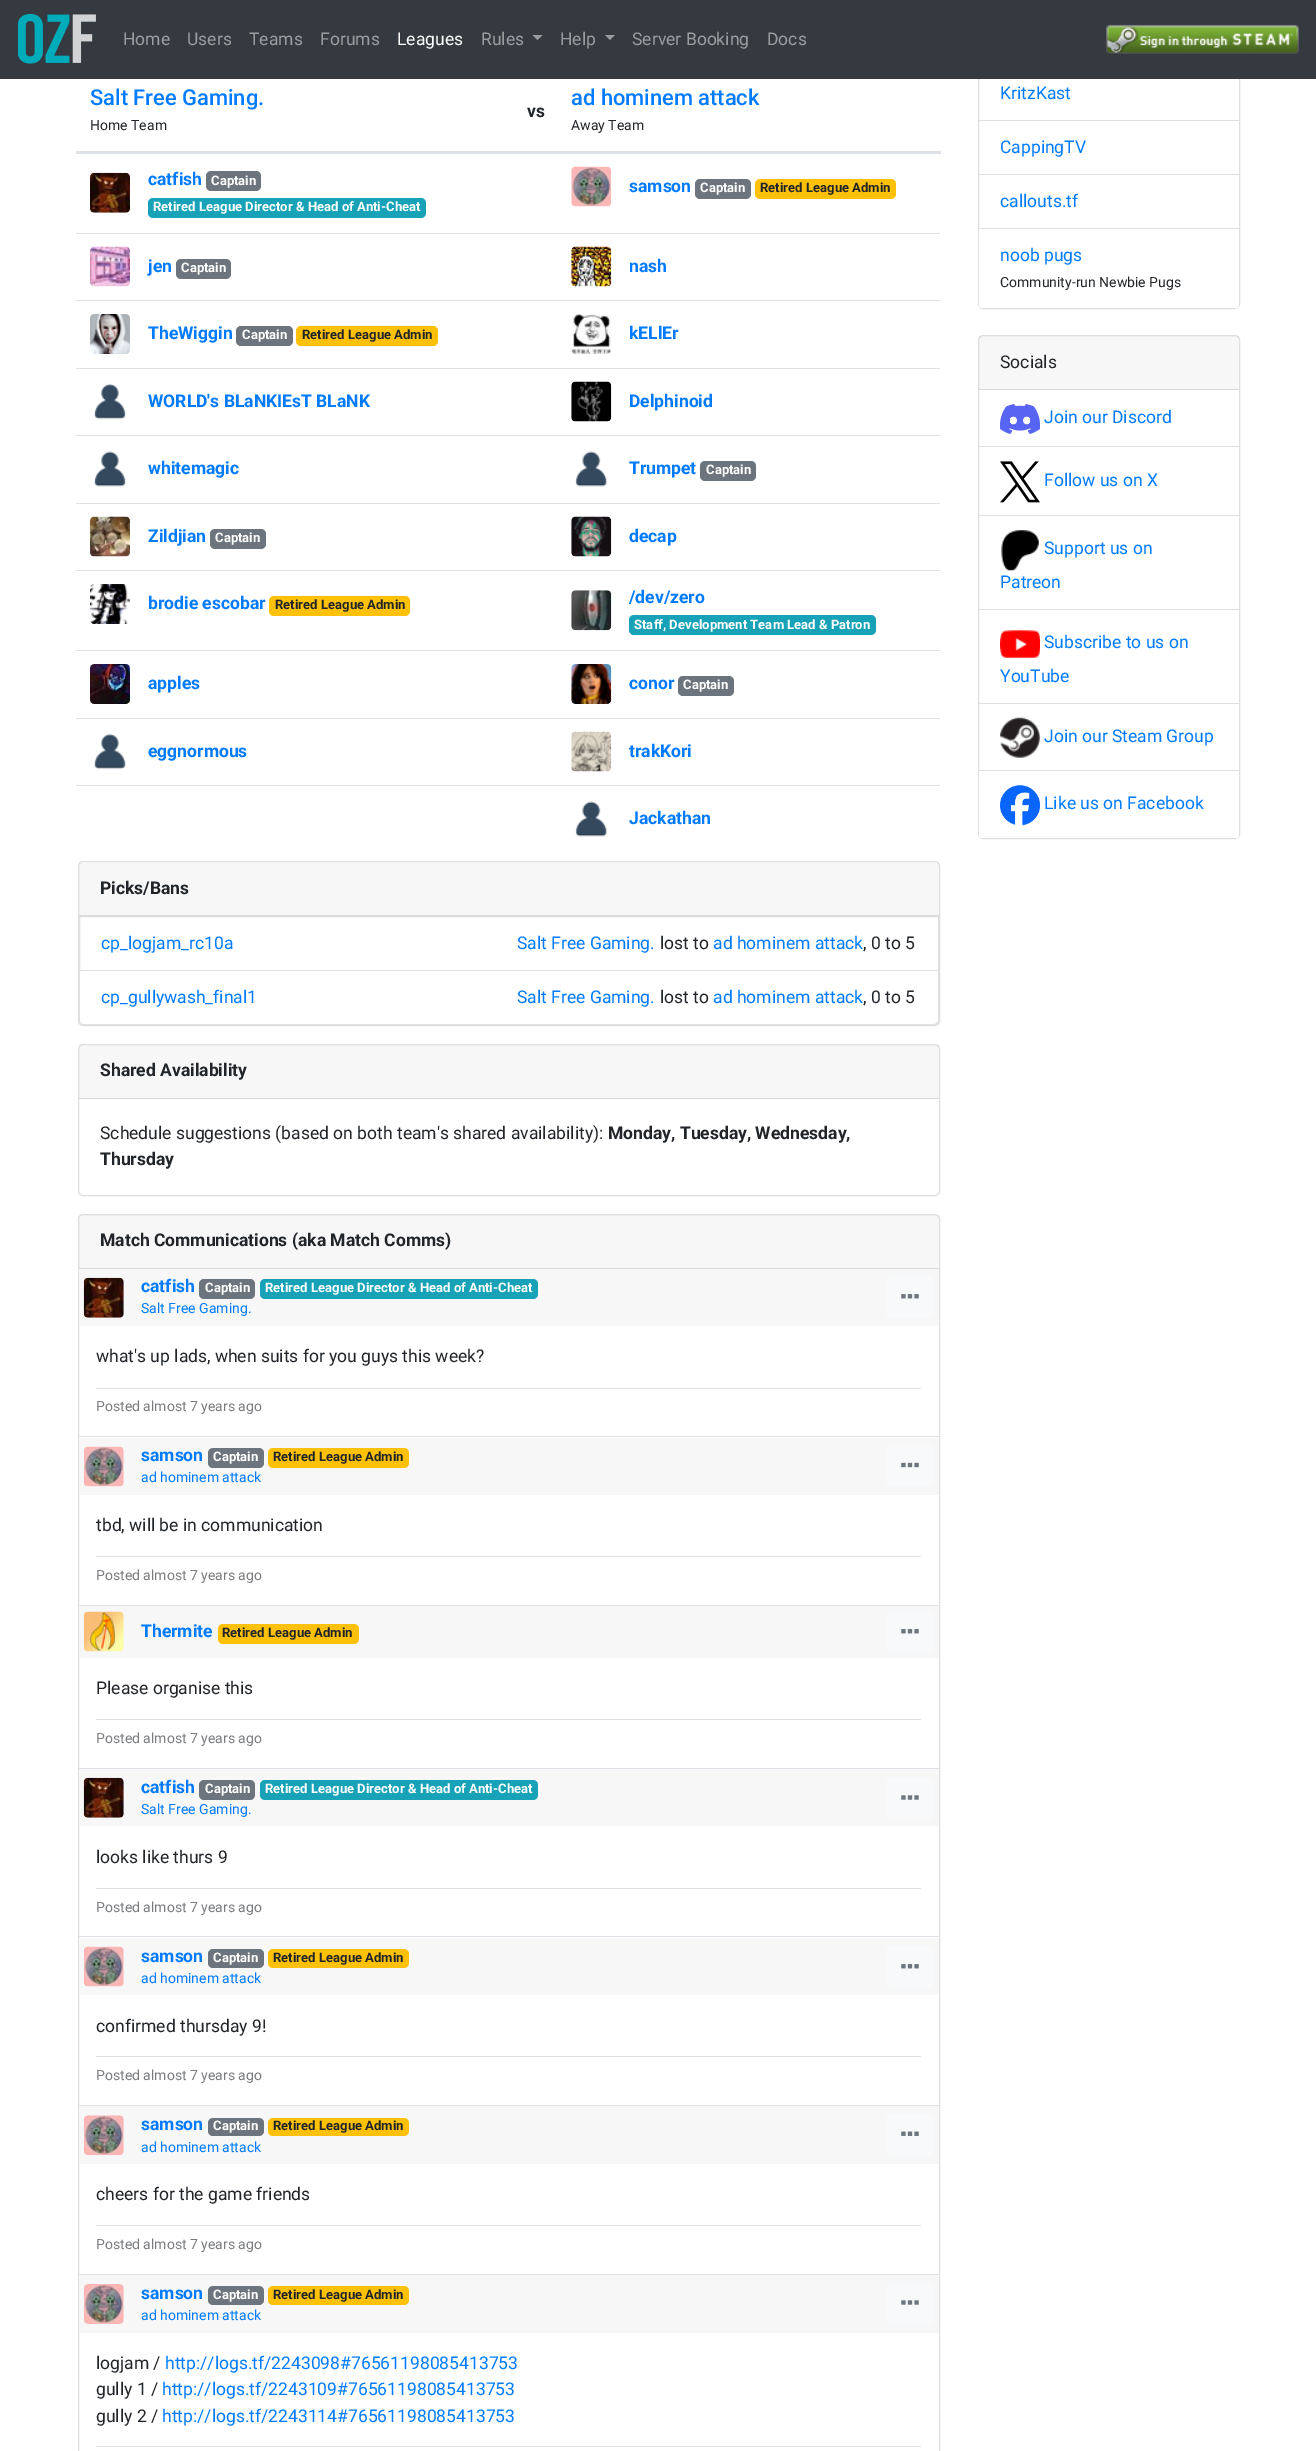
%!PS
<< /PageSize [1316 2451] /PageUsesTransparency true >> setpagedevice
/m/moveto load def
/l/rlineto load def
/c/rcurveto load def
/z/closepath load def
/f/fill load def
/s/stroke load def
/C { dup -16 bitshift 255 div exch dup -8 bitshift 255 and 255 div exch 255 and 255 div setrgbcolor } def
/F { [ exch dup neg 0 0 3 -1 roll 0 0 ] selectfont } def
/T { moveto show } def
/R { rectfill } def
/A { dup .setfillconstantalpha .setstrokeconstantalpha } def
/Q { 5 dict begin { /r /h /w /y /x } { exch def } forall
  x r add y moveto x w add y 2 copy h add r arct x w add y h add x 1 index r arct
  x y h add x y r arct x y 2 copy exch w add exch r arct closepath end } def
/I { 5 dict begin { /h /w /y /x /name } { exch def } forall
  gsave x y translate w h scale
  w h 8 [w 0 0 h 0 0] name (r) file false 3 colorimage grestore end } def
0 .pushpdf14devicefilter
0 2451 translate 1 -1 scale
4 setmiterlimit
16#FFFFFF C
0 0 1316 2451 R
16#DFDFDF C
978.5 -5.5 261 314 4.5 Q s
16#343A40 C
0 0 1316 79 R
(1.rgb) 18 14 78 50 I
/Roboto-Regular 17.5 F
16#9A9DA0 C
(Home) 123 45 T
(Users) 187 45 T
(Teams) 249 45 T
(Forums) 320 45 T
16#FFFFFF C
(Leagues) 397 45 T
16#9A9DA0 C
(Rules) 481 45 T
532.5 35 m 10 0 l -5 5 l z f
(Help) 560 45 T
605 35 m 10 0 l -5 5 l z f
(Server Booking) 632 45 T
(Docs) 767 45 T
(2.rgb) 1106 24 193 30 I
/Roboto-Medium 21.9 F
16#007BFF C
(Salt Free Gaming.) 90 105 T
/Roboto-Regular 14 F
16#212529 C
(Home Team) 90 130 T
/Roboto-Bold 17.5 F
(vs) 527 117 T
16#DEE2E6 C
76 151 865 3 R
/Roboto-Medium 21.9 F
16#007BFF C
(ad hominem attack) 571 105 T
/Roboto-Regular 14 F
16#212529 C
(Away Team) 571 130 T
(3.rgb) 90 172 40 41 I
/Roboto-Bold 17.5 F
16#007BFF C
(catfish) 148 185 T
16#6C757D C
206 171 55 20 5 Q f
/Roboto-Bold 13.1 F
16#FFFFFF C
(Captain) 211 185 T
16#17A2B8 C
148 198 278 20 5 Q f
16#FFFFFF C
(Retired League Director & Head of Anti-Cheat) 153 211 T
(4.rgb) 571 166 41 41 I
/Roboto-Bold 17.5 F
16#007BFF C
(samson) 629 192 T
16#6C757D C
695 179 56 20 5 Q f
/Roboto-Bold 13.1 F
16#FFFFFF C
(Captain) 700 192 T
16#FFC107 C
755 179 141 20 5 Q f
16#212529 C
(Retired League Admin) 760 192 T
(5.rgb) 90 246 40 41 I
/Roboto-Bold 17.5 F
16#007BFF C
(jen) 148 272 T
16#6C757D C
176 259 55 20 5 Q f
/Roboto-Bold 13.1 F
16#FFFFFF C
(Captain) 181 272 T
16#DEE2E6 C
76 233 864 1 R
(6.rgb) 571 246 41 41 I
/Roboto-Bold 17.5 F
16#007BFF C
(nash) 629 272 T
(7.rgb) 90 314 40 40 I
(TheWiggin) 148 339 T
16#6C757D C
236 326 57 20 5 Q f
/Roboto-Bold 13.1 F
16#FFFFFF C
(Captain) 242 339 T
16#FFC107 C
296 326 142 20 5 Q f
16#212529 C
(Retired League Admin) 302 339 T
16#DEE2E6 C
76 300 864 1 R
(8.rgb) 571 314 40 40 I
/Roboto-Bold 17.5 F
16#007BFF C
(kELlEr) 629 339 T
(9.rgb) 94 383 32 37 I
(WORLD's BLaNKIEsT BLaNK) 148 407 T
16#DEE2E6 C
76 368 864 1 R
(10.rgb) 571 381 41 41 I
16#007BFF C
(Delphinoid) 629 407 T
(11.rgb) 94 451 32 36 I
(whitemagic) 148 474 T
16#DEE2E6 C
76 435 864 1 R
(12.rgb) 575 451 32 36 I
16#007BFF C
(Trumpet) 629 474 T
16#6C757D C
700 461 56 20 5 Q f
/Roboto-Bold 13.1 F
16#FFFFFF C
(Captain) 706 474 T
(13.rgb) 90 516 40 41 I
/Roboto-Bold 17.5 F
16#007BFF C
(Zildjian) 148 542 T
16#6C757D C
210 529 56 20 5 Q f
/Roboto-Bold 13.1 F
16#FFFFFF C
(Captain) 215 542 T
16#DEE2E6 C
76 503 864 1 R
(14.rgb) 571 516 41 41 I
/Roboto-Bold 17.5 F
16#007BFF C
(decap) 629 542 T
(15.rgb) 90 584 40 40 I
(brodie escobar) 148 609 T
16#FFC107 C
269 596 141 20 5 Q f
/Roboto-Bold 13.1 F
16#212529 C
(Retired League Admin) 275 609 T
16#DEE2E6 C
76 570 864 1 R
(16.rgb) 571 590 41 41 I
/Roboto-Bold 17.5 F
16#007BFF C
(/dev/zero) 629 603 T
16#17A2B8 C
629 615 247 20 5 Q f
/Roboto-Bold 13.1 F
16#FFFFFF C
(Staff, Development Team Lead & Patron) 634 629 T
(17.rgb) 90 664 40 40 I
/Roboto-Bold 17.5 F
16#007BFF C
(apples) 148 689 T
16#DEE2E6 C
76 650 864 1 R
(18.rgb) 571 664 41 40 I
16#007BFF C
(conor) 629 689 T
16#6C757D C
678 676 56 20 5 Q f
/Roboto-Bold 13.1 F
16#FFFFFF C
(Captain) 683 689 T
(9.rgb) 94 733 32 37 I
/Roboto-Bold 17.5 F
16#007BFF C
(eggnormous) 148 757 T
16#DEE2E6 C
76 718 864 1 R
(19.rgb) 571 731 41 41 I
16#007BFF C
(trakKori) 629 757 T
16#DEE2E6 C
76 785 864 1 R
(12.rgb) 575 801 32 36 I
16#007BFF C
(Jackathan) 629 824 T
16#DFDFDF C
78.5 861.5 861 164 4.5 Q s
0.03 A
16#000000 C
79 863 860 52 R
1 A
16#D8D8D8 C
79 915 860 1 R
16#212529 C
(Picks/Bans) 100 894 T
16#DFDFDF C
79.5 916.5 859 54 rectstroke
/Roboto-Regular 17.5 F
16#007BFF C
(cp_logjam_rc10a) 101 949 T
(Salt Free Gaming.) 517 949 T
16#212529 C
(lost to) 660 949 T
16#007BFF C
(ad hominem attack) 713 949 T
16#212529 C
(, 0 to 5) 863 949 T
16#FFFFFF C
79 971 m 860 0 l 0 49 l 0 3 -2 5 -5 5 c -850 0 l -3 0 -5 -2 -5 -5 c z f
0.12 A
16#000000 C
79 971 m 860 0 l 0 50 l 0 2 -2 4 -5 4 c -851 0 l -2 0 -4 -2 -4 -4 c z 80 971 m 858 0 l 0 50 l 0 1 -2 3 -4 3 c -851 0 l -2 0 -3 -2 -3 -3 c z eofill
1 A
16#007BFF C
(cp_gullywash_final1) 101 1003 T
(Salt Free Gaming.) 517 1003 T
16#212529 C
(lost to) 660 1003 T
16#007BFF C
(ad hominem attack) 713 1003 T
16#212529 C
(, 0 to 5) 863 1003 T
16#DFDFDF C
78.5 1044.5 861 151 4.5 Q s
0.03 A
16#000000 C
79 1045 860 53 R
1 A
16#D8D8D8 C
79 1098 860 1 R
/Roboto-Bold 17.5 F
16#212529 C
(Shared Availability) 100 1076 T
/Roboto-Regular 17.5 F
(Schedule suggestions \(based on both team's shared availability\):) 100 1139 T
/Roboto-Bold 17.5 F
(Monday, Tuesday, Wednesday,) 608 1139 T
(Thursday) 100 1165 T
16#DFDFDF C
78.5 1214.5 861 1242 4.5 Q s
0.03 A
16#000000 C
79 1215 860 53 R
1 A
16#D8D8D8 C
79 1268 860 1 R
16#212529 C
(Match Communications \(aka Match Comms\)) 100 1246 T
16#DEE2E6 C
79 1436 860 1 R
16#F7F7F7 C
79 1269 860 57 R
(20.rgb) 83 1277 41 41 I
16#007BFF C
(catfish) 141 1292 T
16#6C757D C
199 1279 56 20 5 Q f
/Roboto-Bold 13.1 F
16#FFFFFF C
(Captain) 205 1292 T
16#17A2B8 C
260 1279 278 20 5 Q f
16#FFFFFF C
(Retired League Director & Head of Anti-Cheat) 265 1292 T
/Roboto-Regular 14 F
16#007BFF C
(Salt Free Gaming.) 141 1313 T
16#F8F9FA C
886 1276 47 42 5 Q f
(21.rgb) 901 1294 18 5 I
/Roboto-Regular 17.5 F
16#212529 C
(what's up lads, when suits for you guys this week?) 96 1362 T
16#DEE2E6 C
96 1388 825 1 R
/Roboto-Regular 14 F
16#7A7C7F C
(Posted almost 7 years ago) 96 1411 T
16#DEE2E6 C
79 1605 860 1 R
16#F7F7F7 C
79 1438 860 57 R
(22.rgb) 83 1446 41 41 I
/Roboto-Bold 17.5 F
16#007BFF C
(samson) 141 1461 T
16#6C757D C
208 1448 56 20 5 Q f
/Roboto-Bold 13.1 F
16#FFFFFF C
(Captain) 213 1461 T
16#FFC107 C
268 1448 141 20 5 Q f
16#212529 C
(Retired League Admin) 273 1461 T
/Roboto-Regular 14 F
16#007BFF C
(ad hominem attack) 141 1482 T
16#F8F9FA C
886 1445 47 41 5 Q f
(23.rgb) 901 1462 18 6 I
/Roboto-Regular 17.5 F
16#212529 C
(tbd, will be in communication) 96 1531 T
16#DEE2E6 C
96 1556 825 1 R
/Roboto-Regular 14 F
16#7A7C7F C
(Posted almost 7 years ago) 96 1580 T
16#DEE2E6 C
79 1768 860 1 R
16#F7F7F7 C
79 1606 860 52 R
(24.rgb) 83 1611 41 41 I
/Roboto-Bold 17.5 F
16#007BFF C
(Thermite) 141 1637 T
16#FFC107 C
218 1624 141 20 5 Q f
/Roboto-Bold 13.1 F
16#212529 C
(Retired League Admin) 222 1637 T
16#F8F9FA C
886 1611 47 42 5 Q f
(21.rgb) 901 1629 18 5 I
/Roboto-Regular 17.5 F
16#212529 C
(Please organise this) 96 1694 T
16#DEE2E6 C
96 1719 825 1 R
/Roboto-Regular 14 F
16#7A7C7F C
(Posted almost 7 years ago) 96 1743 T
16#DEE2E6 C
79 1936 860 1 R
16#F7F7F7 C
79 1769 860 57 R
(20.rgb) 83 1777 41 41 I
/Roboto-Bold 17.5 F
16#007BFF C
(catfish) 141 1793 T
16#6C757D C
199 1780 56 20 5 Q f
/Roboto-Bold 13.1 F
16#FFFFFF C
(Captain) 205 1793 T
16#17A2B8 C
260 1780 278 20 5 Q f
16#FFFFFF C
(Retired League Director & Head of Anti-Cheat) 265 1793 T
/Roboto-Regular 14 F
16#007BFF C
(Salt Free Gaming.) 141 1814 T
16#F8F9FA C
886 1778 47 41 5 Q f
(25.rgb) 901 1795 18 5 I
/Roboto-Regular 17.5 F
16#212529 C
(looks like thurs 9) 96 1863 T
16#DEE2E6 C
96 1888 825 1 R
/Roboto-Regular 14 F
16#7A7C7F C
(Posted almost 7 years ago) 96 1912 T
16#DEE2E6 C
79 2105 860 1 R
16#F7F7F7 C
79 1938 860 57 R
(22.rgb) 83 1946 41 41 I
/Roboto-Bold 17.5 F
16#007BFF C
(samson) 141 1962 T
16#6C757D C
208 1949 56 19 5 Q f
/Roboto-Bold 13.1 F
16#FFFFFF C
(Captain) 213 1962 T
16#FFC107 C
268 1949 141 19 5 Q f
16#212529 C
(Retired League Admin) 273 1962 T
/Roboto-Regular 14 F
16#007BFF C
(ad hominem attack) 141 1983 T
16#F8F9FA C
886 1946 47 42 5 Q f
(21.rgb) 901 1964 18 5 I
/Roboto-Regular 17.5 F
16#212529 C
(confirmed thursday 9!) 96 2032 T
16#DEE2E6 C
96 2056 825 1 R
/Roboto-Regular 14 F
16#7A7C7F C
(Posted almost 7 years ago) 96 2080 T
16#DEE2E6 C
79 2274 860 1 R
16#F7F7F7 C
79 2106 860 58 R
(26.rgb) 83 2115 41 41 I
/Roboto-Bold 17.5 F
16#007BFF C
(samson) 141 2130 T
16#6C757D C
208 2118 56 18 5 Q f
/Roboto-Bold 13.1 F
16#FFFFFF C
(Captain) 213 2130 T
16#FFC107 C
268 2118 141 18 5 Q f
16#212529 C
(Retired League Admin) 273 2130 T
/Roboto-Regular 14 F
16#007BFF C
(ad hominem attack) 141 2152 T
16#F8F9FA C
886 2114 47 42 5 Q f
(27.rgb) 901 2131 18 5 I
/Roboto-Regular 17.5 F
16#212529 C
(cheers for the game friends) 96 2200 T
16#DEE2E6 C
96 2225 825 1 R
/Roboto-Regular 14 F
16#7A7C7F C
(Posted almost 7 years ago) 96 2249 T
16#F7F7F7 C
79 2275 860 58 R
(28.rgb) 83 2284 41 40 I
/Roboto-Bold 17.5 F
16#007BFF C
(samson) 141 2299 T
16#6C757D C
208 2286 56 19 5 Q f
/Roboto-Bold 13.1 F
16#FFFFFF C
(Captain) 213 2299 T
16#FFC107 C
268 2286 141 19 5 Q f
16#212529 C
(Retired League Admin) 273 2299 T
/Roboto-Regular 14 F
16#007BFF C
(ad hominem attack) 141 2320 T
16#F8F9FA C
886 2283 47 42 5 Q f
(25.rgb) 901 2300 18 5 I
/Roboto-Regular 17.5 F
16#212529 C
(logjam /) 96 2369 T
16#007BFF C
(http://logs.tf/2243098#76561198085413753) 165 2369 T
16#212529 C
(gully 1 /) 96 2395 T
16#007BFF C
(http://logs.tf/2243109#76561198085413753) 162 2395 T
16#212529 C
(gully 2 /) 96 2422 T
16#007BFF C
(http://logs.tf/2243114#76561198085413753) 162 2422 T
16#DEE2E6 C
96 2446 825 1 R
16#DFDFDF C
979 120 260 1 R
16#007BFF C
(KritzKast) 1000 99 T
16#DFDFDF C
979 174 260 1 R
16#007BFF C
(CappingTV) 1000 153 T
16#DFDFDF C
979 228 260 1 R
16#007BFF C
(callouts.tf) 1000 207 T
16#FFFFFF C
979 229 m 260 0 l 0 76 l 0 1.5 -1.5 3 -3 3 c -254 0 l -1.5 0 -3 -1.5 -3 -3 c z f
16#007BFF C
(noob pugs) 1000 261 T
/Roboto-Regular 14 F
16#212529 C
(Community-run Newbie Pugs) 1000 287 T
16#DFDFDF C
978.5 335.5 261 503 4.5 Q s
0.03 A
16#000000 C
979 336 260 53 R
1 A
16#D8D8D8 C
979 389 260 1 R
/Roboto-Regular 17.5 F
16#212529 C
(Socials) 1000 368 T
16#DFDFDF C
979 446 260 1 R
(29.rgb) 1000 404 40 30 I
16#007BFF C
(Join our Discord) 1044 423 T
16#DFDFDF C
979 515 260 1 R
(30.rgb) 1000 461 40 42 I
16#007BFF C
(Follow us on X) 1044 486 T
16#DFDFDF C
979 609 260 1 R
(31.rgb) 1001 530 38 41 I
16#007BFF C
(Support us on) 1044 554 T
(Patreon) 1000 588 T
16#DFDFDF C
979 703 260 1 R
(32.rgb) 1000 630 40 28 I
16#007BFF C
(Subscribe to us on) 1044 648 T
(YouTube) 1000 682 T
16#DFDFDF C
979 770 260 1 R
(33.rgb) 1000 717 40 41 I
16#007BFF C
(Join our Steam Group) 1044 742 T
16#FFFFFF C
979 771 m 260 0 l 0 64 l 0 1.5 -1.5 3 -3 3 c -254 0 l -1.5 0 -3 -1.5 -3 -3 c z f
(34.rgb) 1000 785 40 41 I
16#007BFF C
(Like us on Facebook) 1044 809 T
.poppdf14devicefilter showpage
